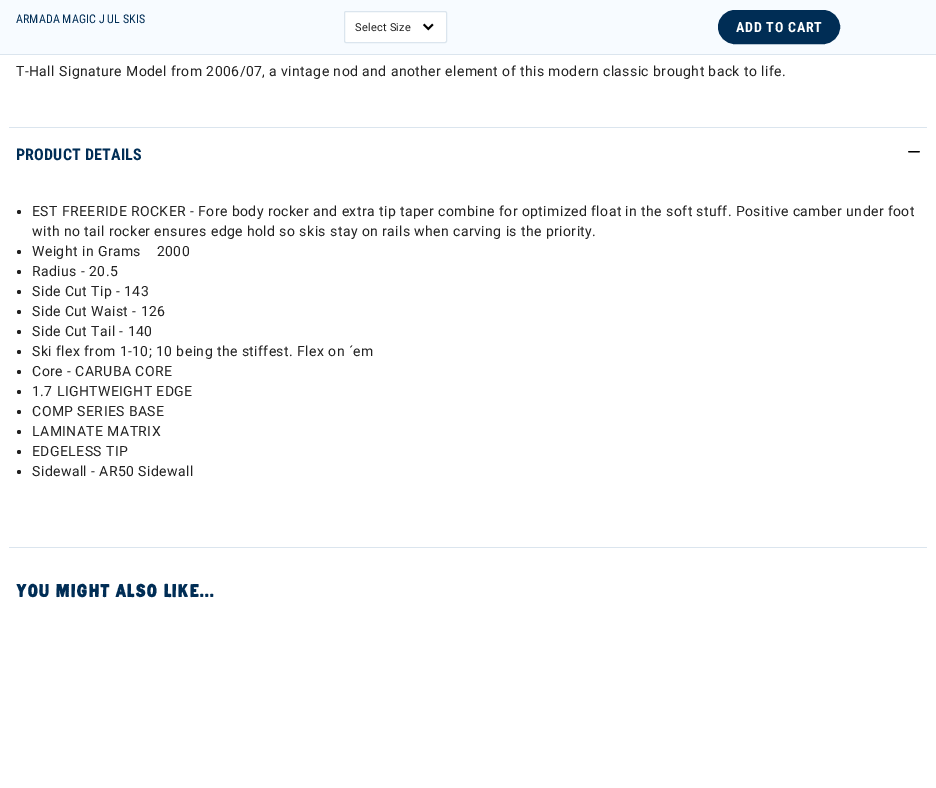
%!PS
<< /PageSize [936 788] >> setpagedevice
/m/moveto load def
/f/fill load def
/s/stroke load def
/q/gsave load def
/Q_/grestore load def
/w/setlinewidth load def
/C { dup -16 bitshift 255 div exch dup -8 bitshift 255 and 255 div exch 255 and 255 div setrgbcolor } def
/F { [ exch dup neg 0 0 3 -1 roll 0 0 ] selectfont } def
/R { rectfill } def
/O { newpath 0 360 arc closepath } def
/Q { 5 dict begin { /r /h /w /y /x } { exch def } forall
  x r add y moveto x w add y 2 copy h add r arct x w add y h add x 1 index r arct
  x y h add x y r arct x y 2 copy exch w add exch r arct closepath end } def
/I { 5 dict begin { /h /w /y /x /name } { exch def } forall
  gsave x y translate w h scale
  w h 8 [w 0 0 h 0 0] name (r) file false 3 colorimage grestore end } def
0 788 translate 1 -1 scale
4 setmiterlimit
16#FFFFFF C
0 0 936 788 R
16#F7FBFF C
0 0 936 54 R
16#DBE5EE C
0 54 936 1 R
/RobotoCondensed-Regular 12 F
16#002D55 C
16 23 m .1 0 (ARMADA MAGIC J UL SKIS) ashow
16#FFFFFF C
344 11 103 32 2 Q f
(1.rgb) 423 23 11 8 I
16#DBE5EE C
344.5 11.5 102 31 1.5 Q s
/Roboto-Regular 11 F
16#222222 C
355 31 m .25 0 (Select Size) ashow
16#002D55 C
719.5 11.5 119 31 15.5 Q q f Q_
3 w
s
/RobotoCondensed-Bold 14 F
16#FFFFFF C
736 32 m .75 0 (ADD TO CART) ashow
/Roboto-Regular 14 F
16#222222 C
16 76 m .42 0 (T-Hall Signature Model from 2006/07, a vintage nod and another element of this modern classic brought back to life.) ashow
16#DBE5EE C
9 127 918 1 R
/RobotoCondensed-Bold 16 F
16#002D55 C
16 160 m .2 0 (PRODUCT DETAILS) ashow
(2.rgb) 908 151 12 2 I
16#222222 C
19 212 2 O f
/Roboto-Regular 14 F
32 216 m .42 0 (EST FREERIDE ROCKER - Fore body rocker and extra tip taper combine for optimized float in the soft stuff. Positive camber under foot) ashow
32 236 m .42 0 (with no tail rocker ensures edge hold so skis stay on rails when carving is the priority.) ashow
19 252 2 O f
32 256 m .42 0 (Weight in Grams    2000) ashow
19 272 2 O f
32 276 m .42 0 (Radius - 20.5) ashow
19 292 2 O f
32 296 m .42 0 (Side Cut Tip - 143) ashow
19 312 2 O f
32 316 m .42 0 (Side Cut Waist - 126) ashow
19 332 2 O f
32 336 m .42 0 (Side Cut Tail - 140) ashow
19 352 2 O f
32 356 m .42 0 (Ski flex from 1-10; 10 being the stiffest. Flex on ´em) ashow
19 372 2 O f
32 376 m .42 0 (Core - CARUBA CORE) ashow
19 392 2 O f
32 396 m .42 0 (1.7 LIGHTWEIGHT EDGE) ashow
19 412 2 O f
32 416 m .42 0 (COMP SERIES BASE) ashow
19 432 2 O f
32 436 m .42 0 (LAMINATE MATRIX) ashow
19 452 2 O f
32 456 m .42 0 (EDGELESS TIP) ashow
19 472 2 O f
32 476 m .42 0 (Sidewall - AR50 Sidewall) ashow
16#DBE5EE C
9 547 918 1 R
/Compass-Bold 18 F
16#002D55 C
16 597 m .2 0 (YOU MIGHT ALSO LIKE...) ashow
showpage
